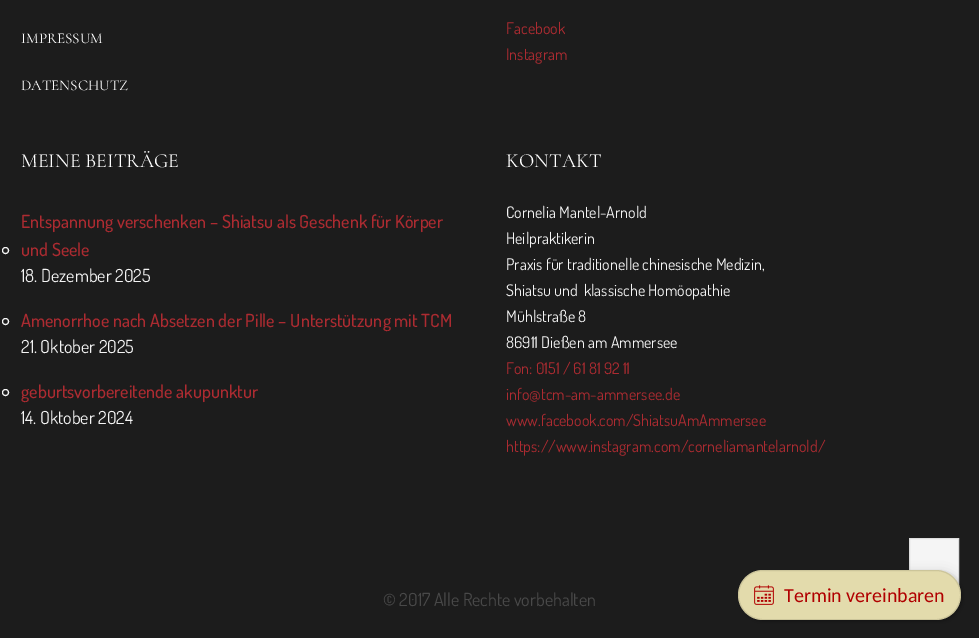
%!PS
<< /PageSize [979 638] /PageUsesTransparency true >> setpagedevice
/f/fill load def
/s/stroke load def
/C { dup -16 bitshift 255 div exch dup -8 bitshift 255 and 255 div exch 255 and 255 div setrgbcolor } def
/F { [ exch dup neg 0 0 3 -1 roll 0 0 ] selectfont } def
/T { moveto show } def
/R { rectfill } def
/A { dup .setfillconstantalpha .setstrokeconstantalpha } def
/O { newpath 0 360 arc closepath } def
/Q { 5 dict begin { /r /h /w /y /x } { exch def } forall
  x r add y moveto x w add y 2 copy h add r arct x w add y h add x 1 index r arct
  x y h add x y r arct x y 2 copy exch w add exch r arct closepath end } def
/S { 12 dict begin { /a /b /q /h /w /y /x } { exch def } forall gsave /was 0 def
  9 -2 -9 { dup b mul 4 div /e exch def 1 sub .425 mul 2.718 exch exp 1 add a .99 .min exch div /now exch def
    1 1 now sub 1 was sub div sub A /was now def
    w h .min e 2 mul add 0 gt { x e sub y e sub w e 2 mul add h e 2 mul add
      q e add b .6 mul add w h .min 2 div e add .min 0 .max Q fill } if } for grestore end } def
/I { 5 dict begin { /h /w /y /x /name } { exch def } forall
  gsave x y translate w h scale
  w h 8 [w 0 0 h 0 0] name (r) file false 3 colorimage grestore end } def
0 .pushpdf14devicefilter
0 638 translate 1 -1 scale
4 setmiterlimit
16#1C1C1C C
0 0 979 638 R
/Cormorant-Light 15 F
16#FFFFFF C
(IMPRESSUM) 21 43 T
(DATENSCHUTZ) 21 90 T
/Dosis-Regular 16 F
16#AD2B31 C
(Facebook) 506 34 T
(Instagram) 506 60 T
/Cormorant-Light 20 F
16#FFFFFF C
(MEINE BEITRÄGE) 21 167 T
16#F4F4F4 C
5.5 250.5 3 O s
/Dosis-Medium 18 F
16#AD2B31 C
(Entspannung verschenken – Shiatsu als Geschenk für Körper) 21 228 T
(und Seele) 21 256 T
/Dosis-Regular 18 F
16#F4F4F4 C
(18. Dezember 2025) 21 282 T
5.5 321.5 3 O s
/Dosis-Medium 18 F
16#AD2B31 C
(Amenorrhoe nach Absetzen der Pille – Unterstützung mit TCM) 21 327 T
/Dosis-Regular 18 F
16#F4F4F4 C
(21. Oktober 2025) 21 353 T
5.5 392.5 3 O s
/Dosis-Medium 18 F
16#AD2B31 C
(geburtsvorbereitende akupunktur) 21 398 T
/Dosis-Regular 18 F
16#F4F4F4 C
(14. Oktober 2024) 21 424 T
/Cormorant-Light 20 F
16#FFFFFF C
(KONTAKT) 506 167 T
/Dosis-Regular 16 F
16#F4F4F4 C
(Cornelia Mantel-Arnold) 506 218 T
(Heilpraktikerin) 506 244 T
(Praxis für traditionelle chinesische Medizin,) 506 270 T
(Shiatsu und  klassische Homöopathie) 506 296 T
(Mühlstraße 8) 506 322 T
(86911 Dießen am Ammersee) 506 348 T
16#AD2B31 C
(Fon: 0151 / 61 81 92 11) 506 374 T
(info@tcm-am-ammersee.de) 506 400 T
(www.facebook.com/ShiatsuAmAmmersee) 506 426 T
(https://www.instagram.com/corneliamantelarnold/) 506 452 T
16#F5F5F5 C
910 539 48 44 R
16#DDDDDD C
909.5 538.5 49 49 rectstroke
/Dosis-Regular 18 F
16#494949 C
(© 2017 Alle Rechte vorbehalten) 383 606 T
16#000000 C
742 574 219 46 23 6 .2 S
742 574 219 46 23 2.5 .3 S
16#E3DBAC C
738 570 223 50 25 Q f
0.1 A
16#000000 C
738.5 570.5 222 49 24.5 Q s
1 A
(1.rgb) 754 585 20 20 I
/Carlito-Regular 20 F
16#B00000 C
(Termin vereinbaren) 784 602 T
.poppdf14devicefilter showpage
